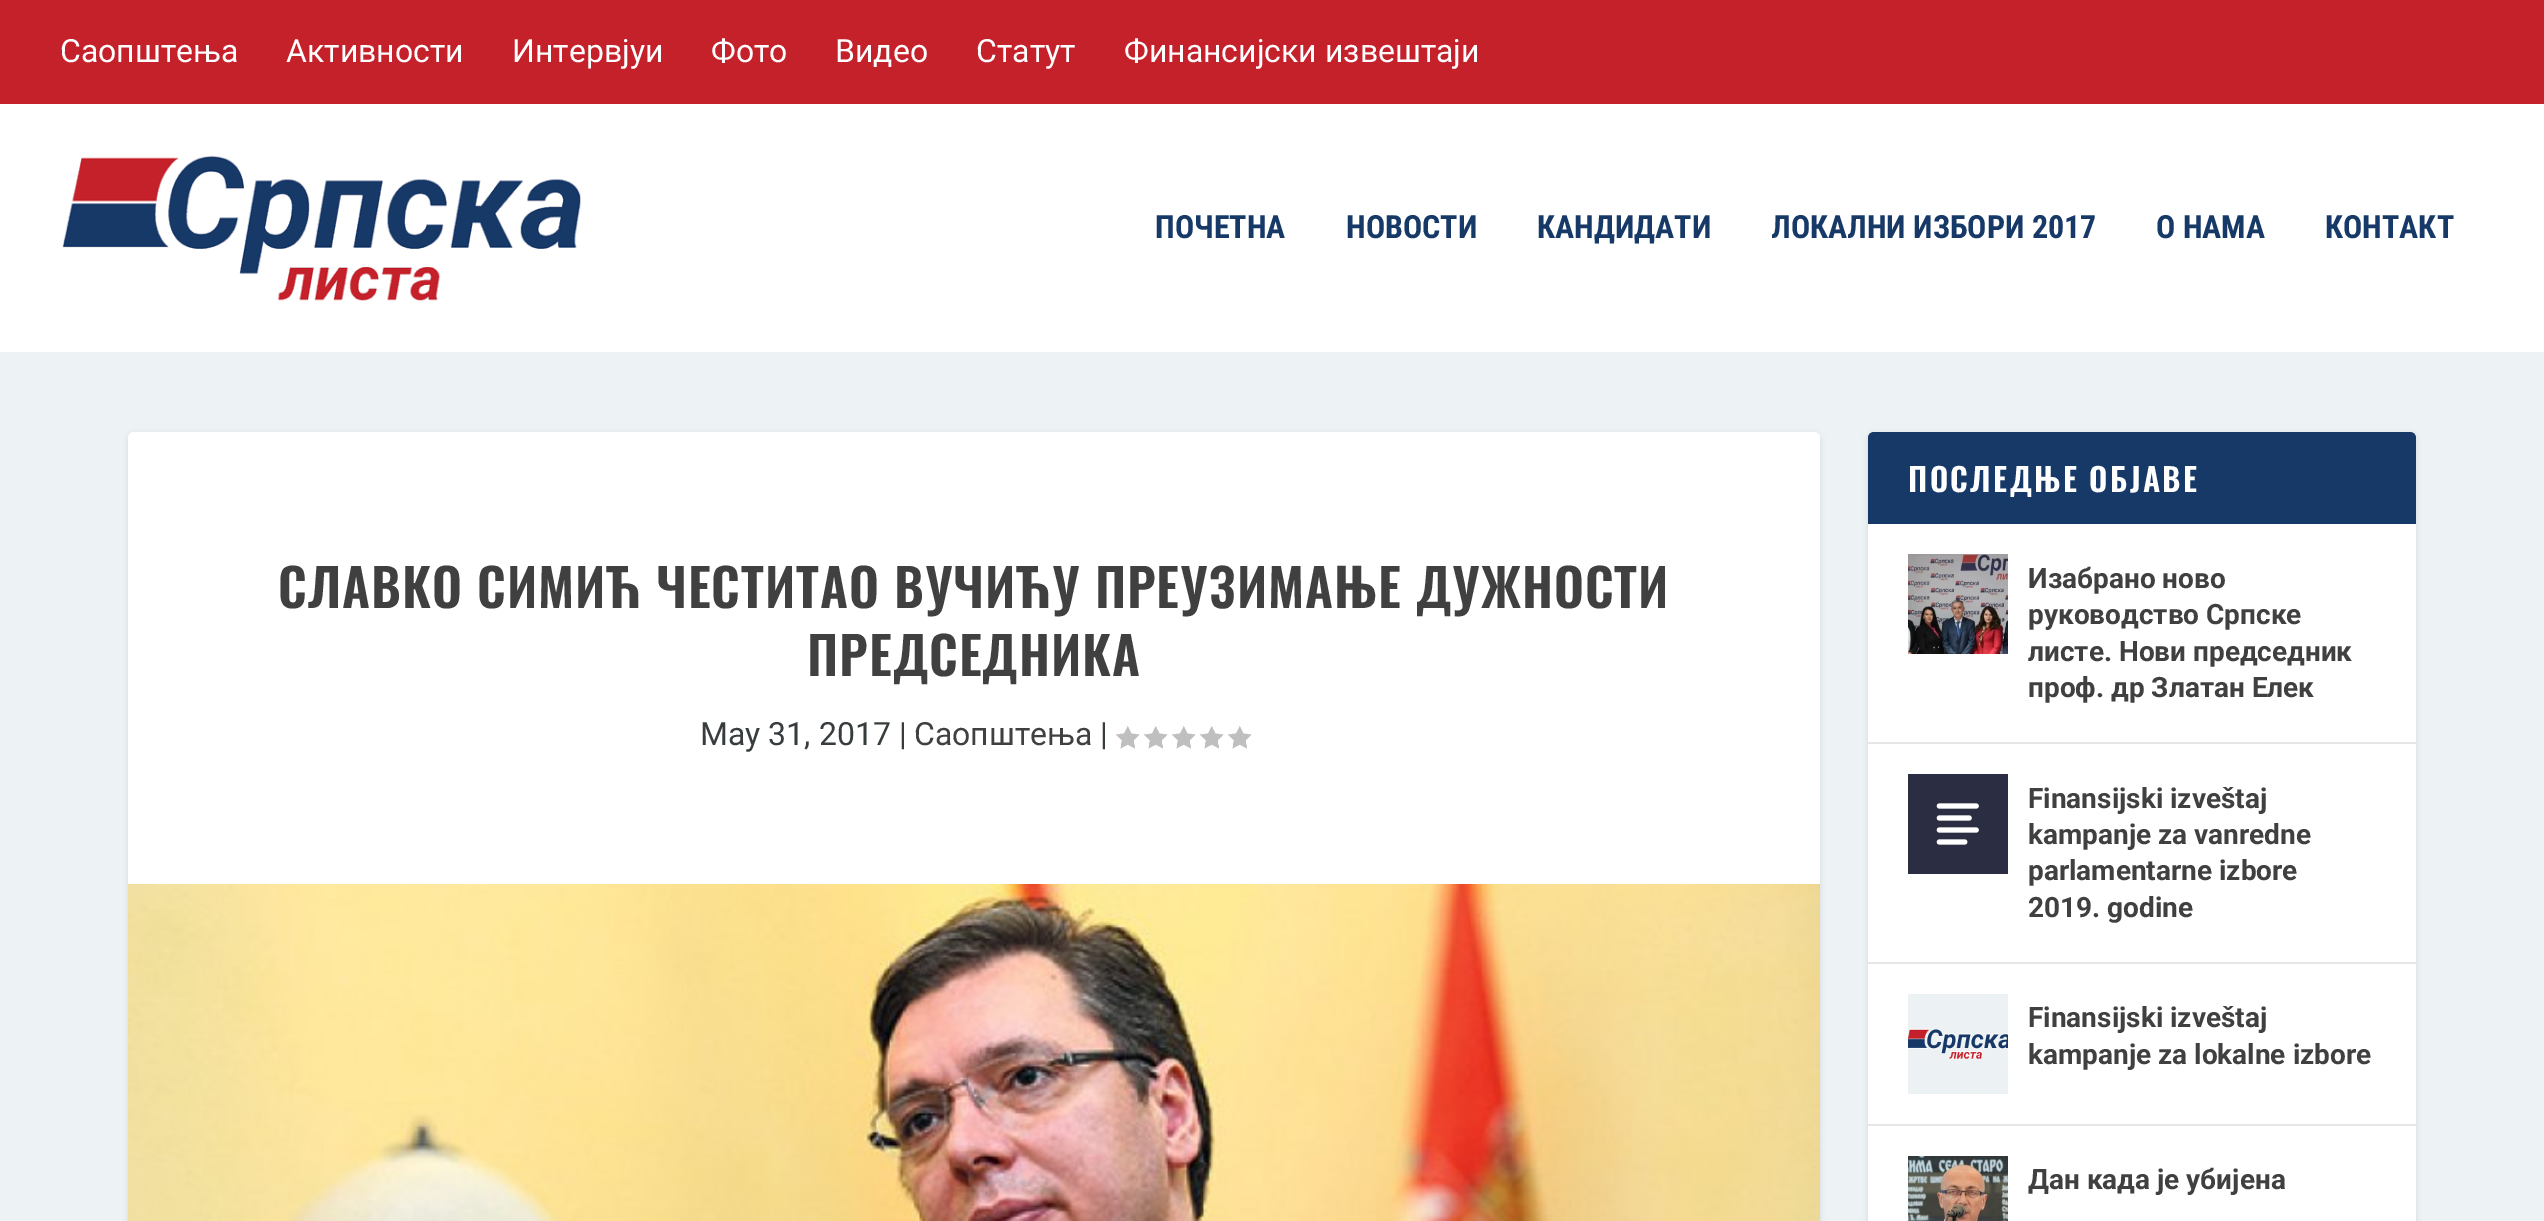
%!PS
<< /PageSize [2544 1221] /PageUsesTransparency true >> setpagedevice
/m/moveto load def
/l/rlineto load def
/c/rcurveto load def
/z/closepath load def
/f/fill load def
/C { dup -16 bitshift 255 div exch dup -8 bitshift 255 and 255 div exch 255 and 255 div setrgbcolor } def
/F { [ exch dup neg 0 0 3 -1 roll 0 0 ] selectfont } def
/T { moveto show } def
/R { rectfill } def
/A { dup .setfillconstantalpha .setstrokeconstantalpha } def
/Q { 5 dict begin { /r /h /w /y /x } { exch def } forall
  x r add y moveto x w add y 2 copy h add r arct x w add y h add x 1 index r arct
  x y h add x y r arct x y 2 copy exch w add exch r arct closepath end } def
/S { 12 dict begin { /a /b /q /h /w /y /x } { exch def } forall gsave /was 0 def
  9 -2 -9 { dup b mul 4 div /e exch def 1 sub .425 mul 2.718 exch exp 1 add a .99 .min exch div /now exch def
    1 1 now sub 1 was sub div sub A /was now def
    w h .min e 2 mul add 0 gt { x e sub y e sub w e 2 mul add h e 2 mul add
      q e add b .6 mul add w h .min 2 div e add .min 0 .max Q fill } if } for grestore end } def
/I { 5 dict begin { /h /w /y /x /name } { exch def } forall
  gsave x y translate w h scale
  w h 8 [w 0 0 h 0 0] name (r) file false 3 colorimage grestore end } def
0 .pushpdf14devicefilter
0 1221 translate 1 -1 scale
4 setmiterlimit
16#EDF2F4 C
0 0 2544 1221 R
16#C5212B C
0 0 2544 104 R
/Roboto-Regular 32 F
16#FFFFFF C
(Саопштења) 60 62 T
(Активности) 286 62 T
(Интервјуи) 512 62 T
(Фото) 711 62 T
(Видео) 835 62 T
(Статут) 976 62 T
(Финансијски извештаји) 1124 62 T
0 104 2544 248 R
(1.rgb) 62 155 519 146 I
/RobotoCondensed-Bold 32 F
16#173968 C
(ПОЧЕТНА) 1155 238 T
(НОВОСТИ) 1346 238 T
(КАНДИДАТИ) 1537 238 T
(ЛОКАЛНИ ИЗБОРИ 2017) 1771 238 T
(О НАМА) 2156 238 T
(КОНТАКТ) 2325 238 T
16#000000 C
128 434 1692 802 6 3 .1 S
16#FFFFFF C
128 432 1692 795 6 Q f
/Oswald-SemiBold 52 F
16#404040 C
278 608 m 1 0 (СЛАВКО СИМИЋ ЧЕСТИТАО ВУЧИЋУ ПРЕУЗИМАЊЕ ДУЖНОСТИ) ashow
807 676 m 1 0 (ПРЕДСЕДНИКА) ashow
/Roboto-Regular 32 F
16#373D3F C
(May 31, 2017 |) 700 745 T
16#404040 C
(Саопштења) 914 745 T
16#373D3F C
(|) 1100 745 T
(2.rgb) 1116 726 24 23 I
(2.rgb) 1144 726 24 23 I
(2.rgb) 1172 726 24 23 I
(2.rgb) 1200 726 24 23 I
(2.rgb) 1228 726 24 23 I
(3.rgb) 128 884 1692 337 I
16#000000 C
1868 434 548 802 6 3 .1 S
16#FFFFFF C
1868 432 548 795 6 Q f
16#173968 C
1874 432 m 536 0 l 3.5 0 6 2.5 6 6 c 0 86 l -548 0 l 0 -86 l 0 -3.5 2.5 -6 6 -6 c z f
/Oswald-SemiBold 32 F
16#FFFFFF C
1908 492 m 2.4 0 (ПОСЛЕДЊЕ ОБЈАВЕ) ashow
16#E6E6E6 C
1868 742 548 2 R
(4.rgb) 1908 554 100 100 I
/Roboto-Bold 28 F
16#404040 C
(Изабрано ново) 2028 588 T
(руководство Српске) 2028 624 T
(листе. Нови председник) 2028 661 T
(проф. др Златан Елек) 2028 697 T
16#E6E6E6 C
1868 962 548 2 R
16#2B2D42 C
1908 774 100 100 R
(5.rgb) 1936 803 43 42 I
16#404040 C
(Finansijski izveštaj) 2028 808 T
(kampanje za vanredne) 2028 844 T
(parlamentarne izbore) 2028 880 T
(2019. godine) 2028 917 T
16#E6E6E6 C
1868 1124 548 2 R
(6.rgb) 1908 994 100 100 I
16#404040 C
(Finansijski izveštaj) 2028 1027 T
(kampanje za lokalne izbore) 2028 1064 T
(7.rgb) 1908 1156 100 65 I
(Дан када је убијена) 2028 1189 T
.poppdf14devicefilter showpage
